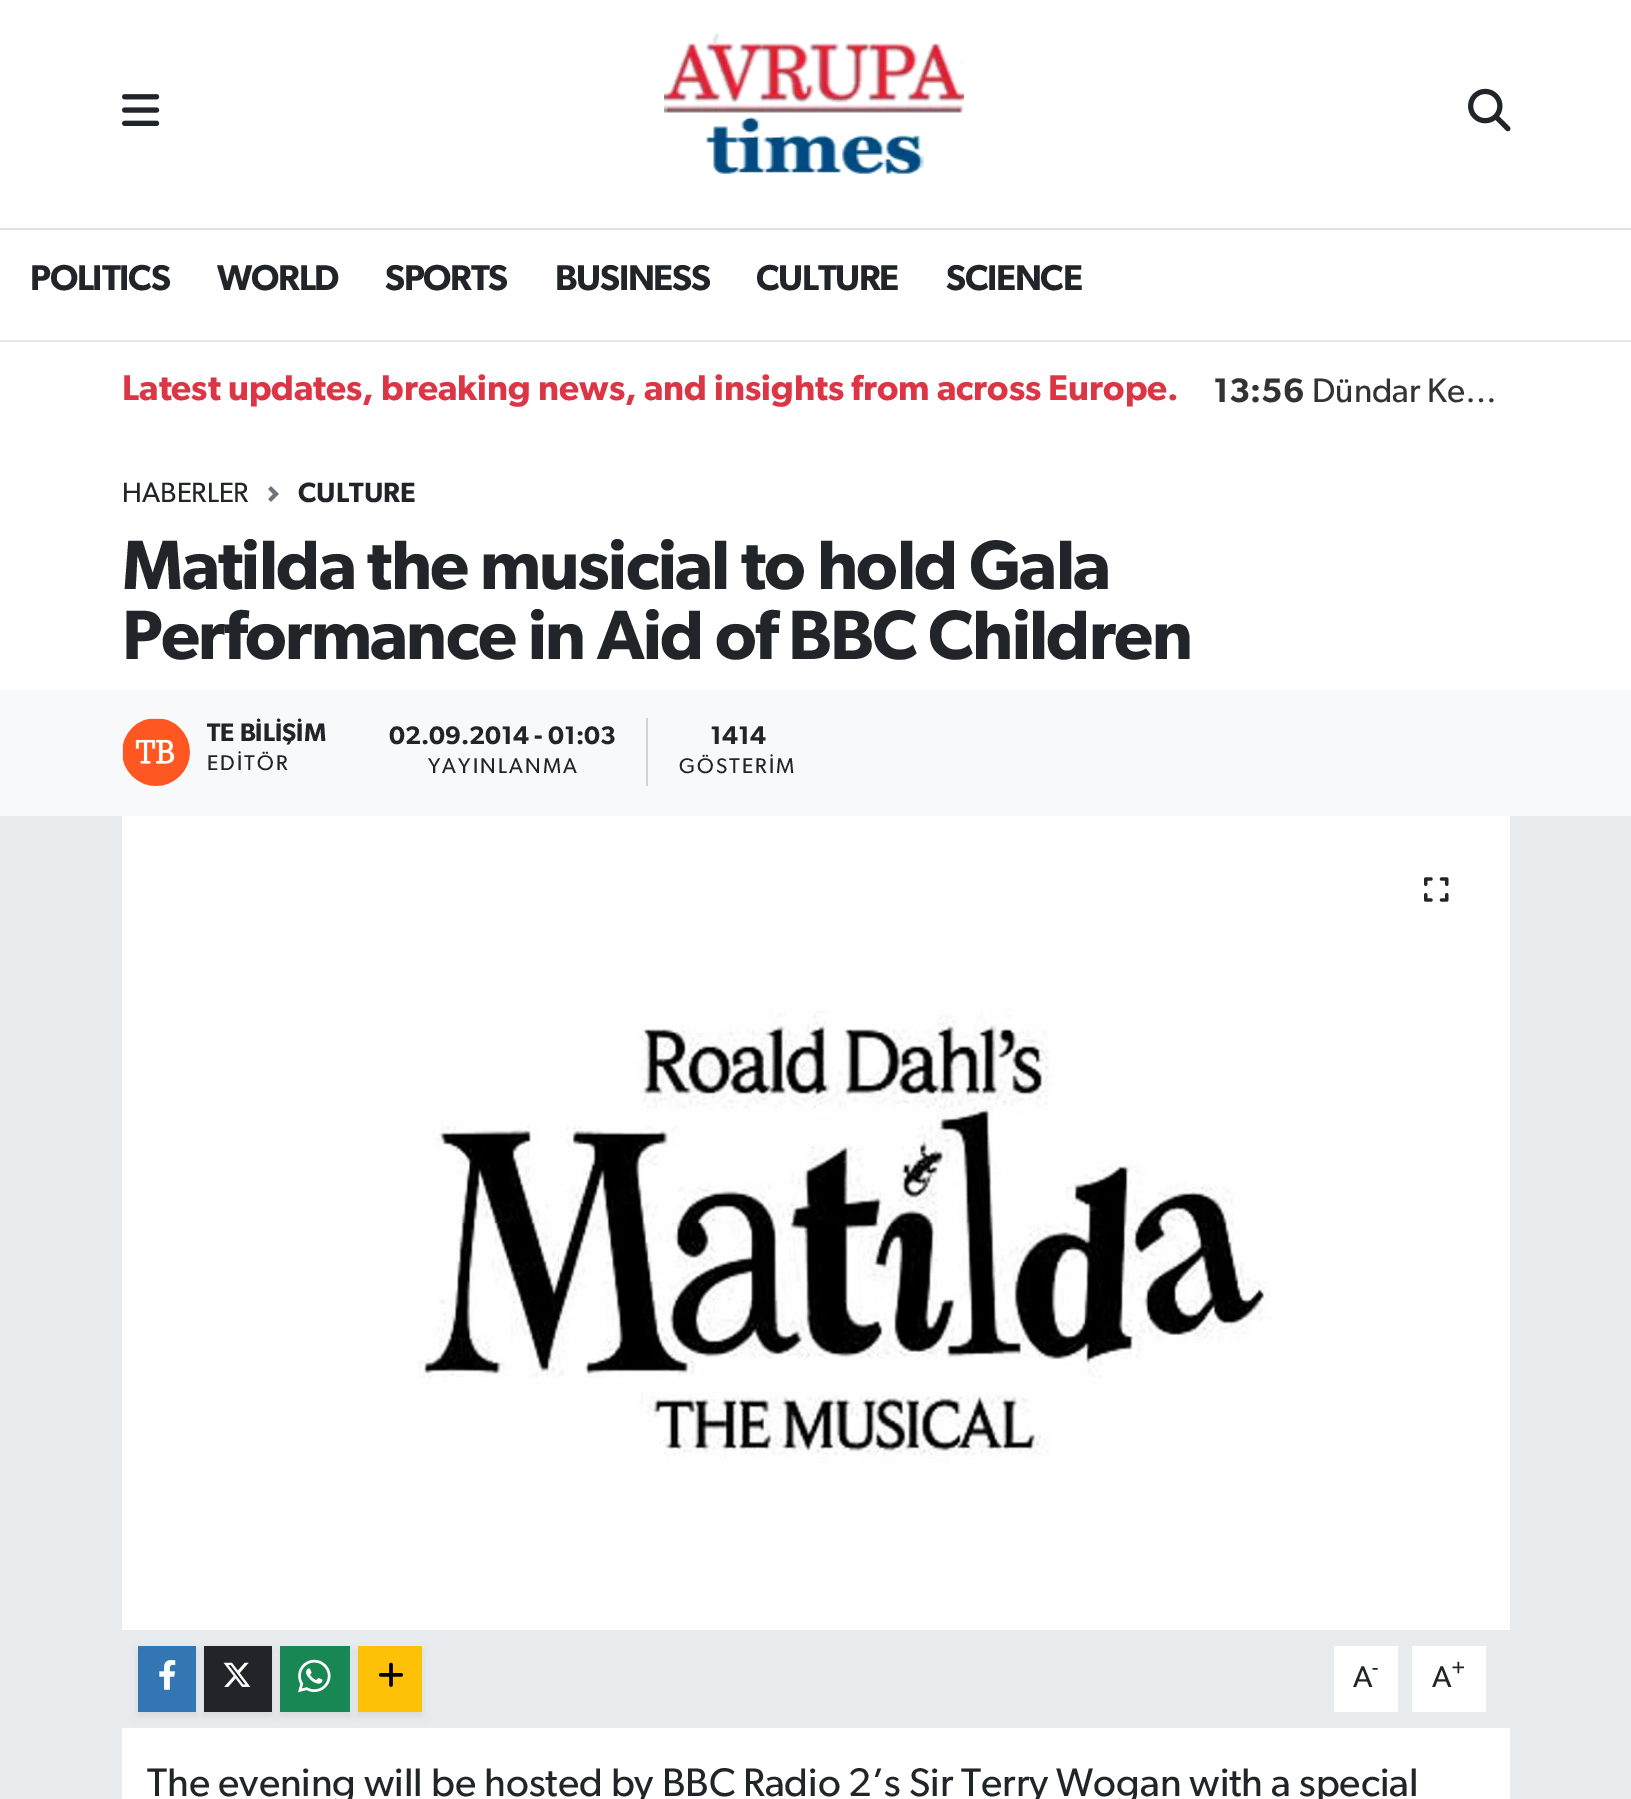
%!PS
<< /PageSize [1631 1799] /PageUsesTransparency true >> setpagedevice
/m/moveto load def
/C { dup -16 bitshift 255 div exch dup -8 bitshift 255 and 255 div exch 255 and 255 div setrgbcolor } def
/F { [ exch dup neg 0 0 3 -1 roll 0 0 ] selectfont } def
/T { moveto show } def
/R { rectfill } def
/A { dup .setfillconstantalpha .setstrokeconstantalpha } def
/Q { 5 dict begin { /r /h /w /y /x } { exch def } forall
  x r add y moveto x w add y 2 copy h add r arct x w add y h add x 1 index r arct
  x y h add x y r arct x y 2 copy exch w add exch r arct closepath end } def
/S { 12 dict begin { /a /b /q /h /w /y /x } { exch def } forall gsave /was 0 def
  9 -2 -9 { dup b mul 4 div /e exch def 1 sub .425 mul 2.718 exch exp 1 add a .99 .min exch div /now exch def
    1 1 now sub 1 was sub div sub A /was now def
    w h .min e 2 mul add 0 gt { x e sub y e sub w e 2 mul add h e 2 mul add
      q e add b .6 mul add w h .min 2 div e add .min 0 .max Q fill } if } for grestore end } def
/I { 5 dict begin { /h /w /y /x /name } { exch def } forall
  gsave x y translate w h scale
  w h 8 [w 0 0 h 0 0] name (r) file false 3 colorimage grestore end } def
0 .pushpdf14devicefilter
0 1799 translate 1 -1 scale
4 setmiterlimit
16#E9ECEF C
0 0 1631 1799 R
16#FFFFFF C
0 0 1631 228 R
16#DEE2E6 C
0 228 1631 2 R
(1.rgb) 122 94 38 32 I
(2.rgb) 664 34 300 140 I
(3.rgb) 1468 88 43 44 I
16#FFFFFF C
0 230 1631 110 R
16#E6E6E6 C
0 340 1631 2 R
/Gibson-SemiBold 36 F
16#212529 C
30 290 m -1.25 0 (POLITICS) ashow
217 290 m -1.25 0 (WORLD) ashow
385 290 m -1.25 0 (SPORTS) ashow
555 290 m -1.25 0 (BUSINESS) ashow
756 290 m -1.25 0 (CULTURE) ashow
946 290 m -1.25 0 (SCIENCE) ashow
16#FFFFFF C
0 342 1631 348 R
16#DC3545 C
(Latest updates, breaking news, and insights from across Europe.) 122 400 T
/Gibson-SemiBold 34 F
16#333333 C
(13:56) 1213 402 T
/Gibson-Regular 34 F
(Dündar Ke…) 1312 402 T
/Gibson-Regular 28 F
16#212529 C
(HABERLER) 122 502 T
(4.rgb) 268 486 11 16 I
/Gibson-SemiBold 28 F
(CULTURE) 298 502 T
/Gibson-SemiBold 70 F
122 589 m -1.6 0 (Matilda the musicial to hold Gala) ashow
122 659 m -1.6 0 (Performance in Aid of BBC Children) ashow
16#F8F9FA C
0 690 1631 126 R
(5.rgb) 122 718 68 68 I
/Gibson-SemiBold 25.5 F
16#212529 C
(TE BİLİŞİM) 207 741 T
/Gibson-Regular 21.25 F
207 770 m 2.1 0 (EDİTÖR) ashow
16#CED4DA C
646 718 2 68 R
/Gibson-SemiBold 25.5 F
16#212529 C
(02.09.2014 - 01:03) 389 744 T
/Gibson-Regular 21.25 F
428 773 m 2.1 0 (YAYINLANMA) ashow
/Gibson-SemiBold 25.5 F
(1414) 710 744 T
/Gibson-Regular 21.25 F
679 773 m 2.1 0 (GÖSTERİM) ashow
(6.rgb) 122 816 1388 814 I
(7.rgb) 1424 877 25 25 I
16#000000 C
138 1650 58 66 0 4 .07 S
16#3276B3 C
138 1646 58 66 R
(8.rgb) 159 1660 17 30 I
16#000000 C
204 1650 68 66 0 4 .07 S
16#212529 C
204 1646 68 66 R
(9.rgb) 223 1662 28 25 I
16#000000 C
280 1650 70 66 0 4 .07 S
16#198754 C
280 1646 70 66 R
(10.rgb) 298 1659 33 34 I
16#000000 C
358 1650 64 66 0 4 .07 S
16#FFC107 C
358 1646 64 66 R
(11.rgb) 378 1662 26 25 I
16#FFFFFF C
1334 1646 64 66 R
/Gibson-Regular 30 F
16#212529 C
(A) 1353 1687 T
/Gibson-Regular 22 F
(-) 1372 1675 T
16#FFFFFF C
1412 1646 74 66 R
/Gibson-Regular 30 F
16#212529 C
(A) 1432 1687 T
/Gibson-Regular 22 F
(+) 1451 1675 T
16#FFFFFF C
122 1728 1388 71 R
/Gibson-Regular 40 F
16#212529 C
(The evening will be hosted by BBC Radio 2’s Sir Terry Wogan with a special) 147 1796 T
.poppdf14devicefilter showpage
